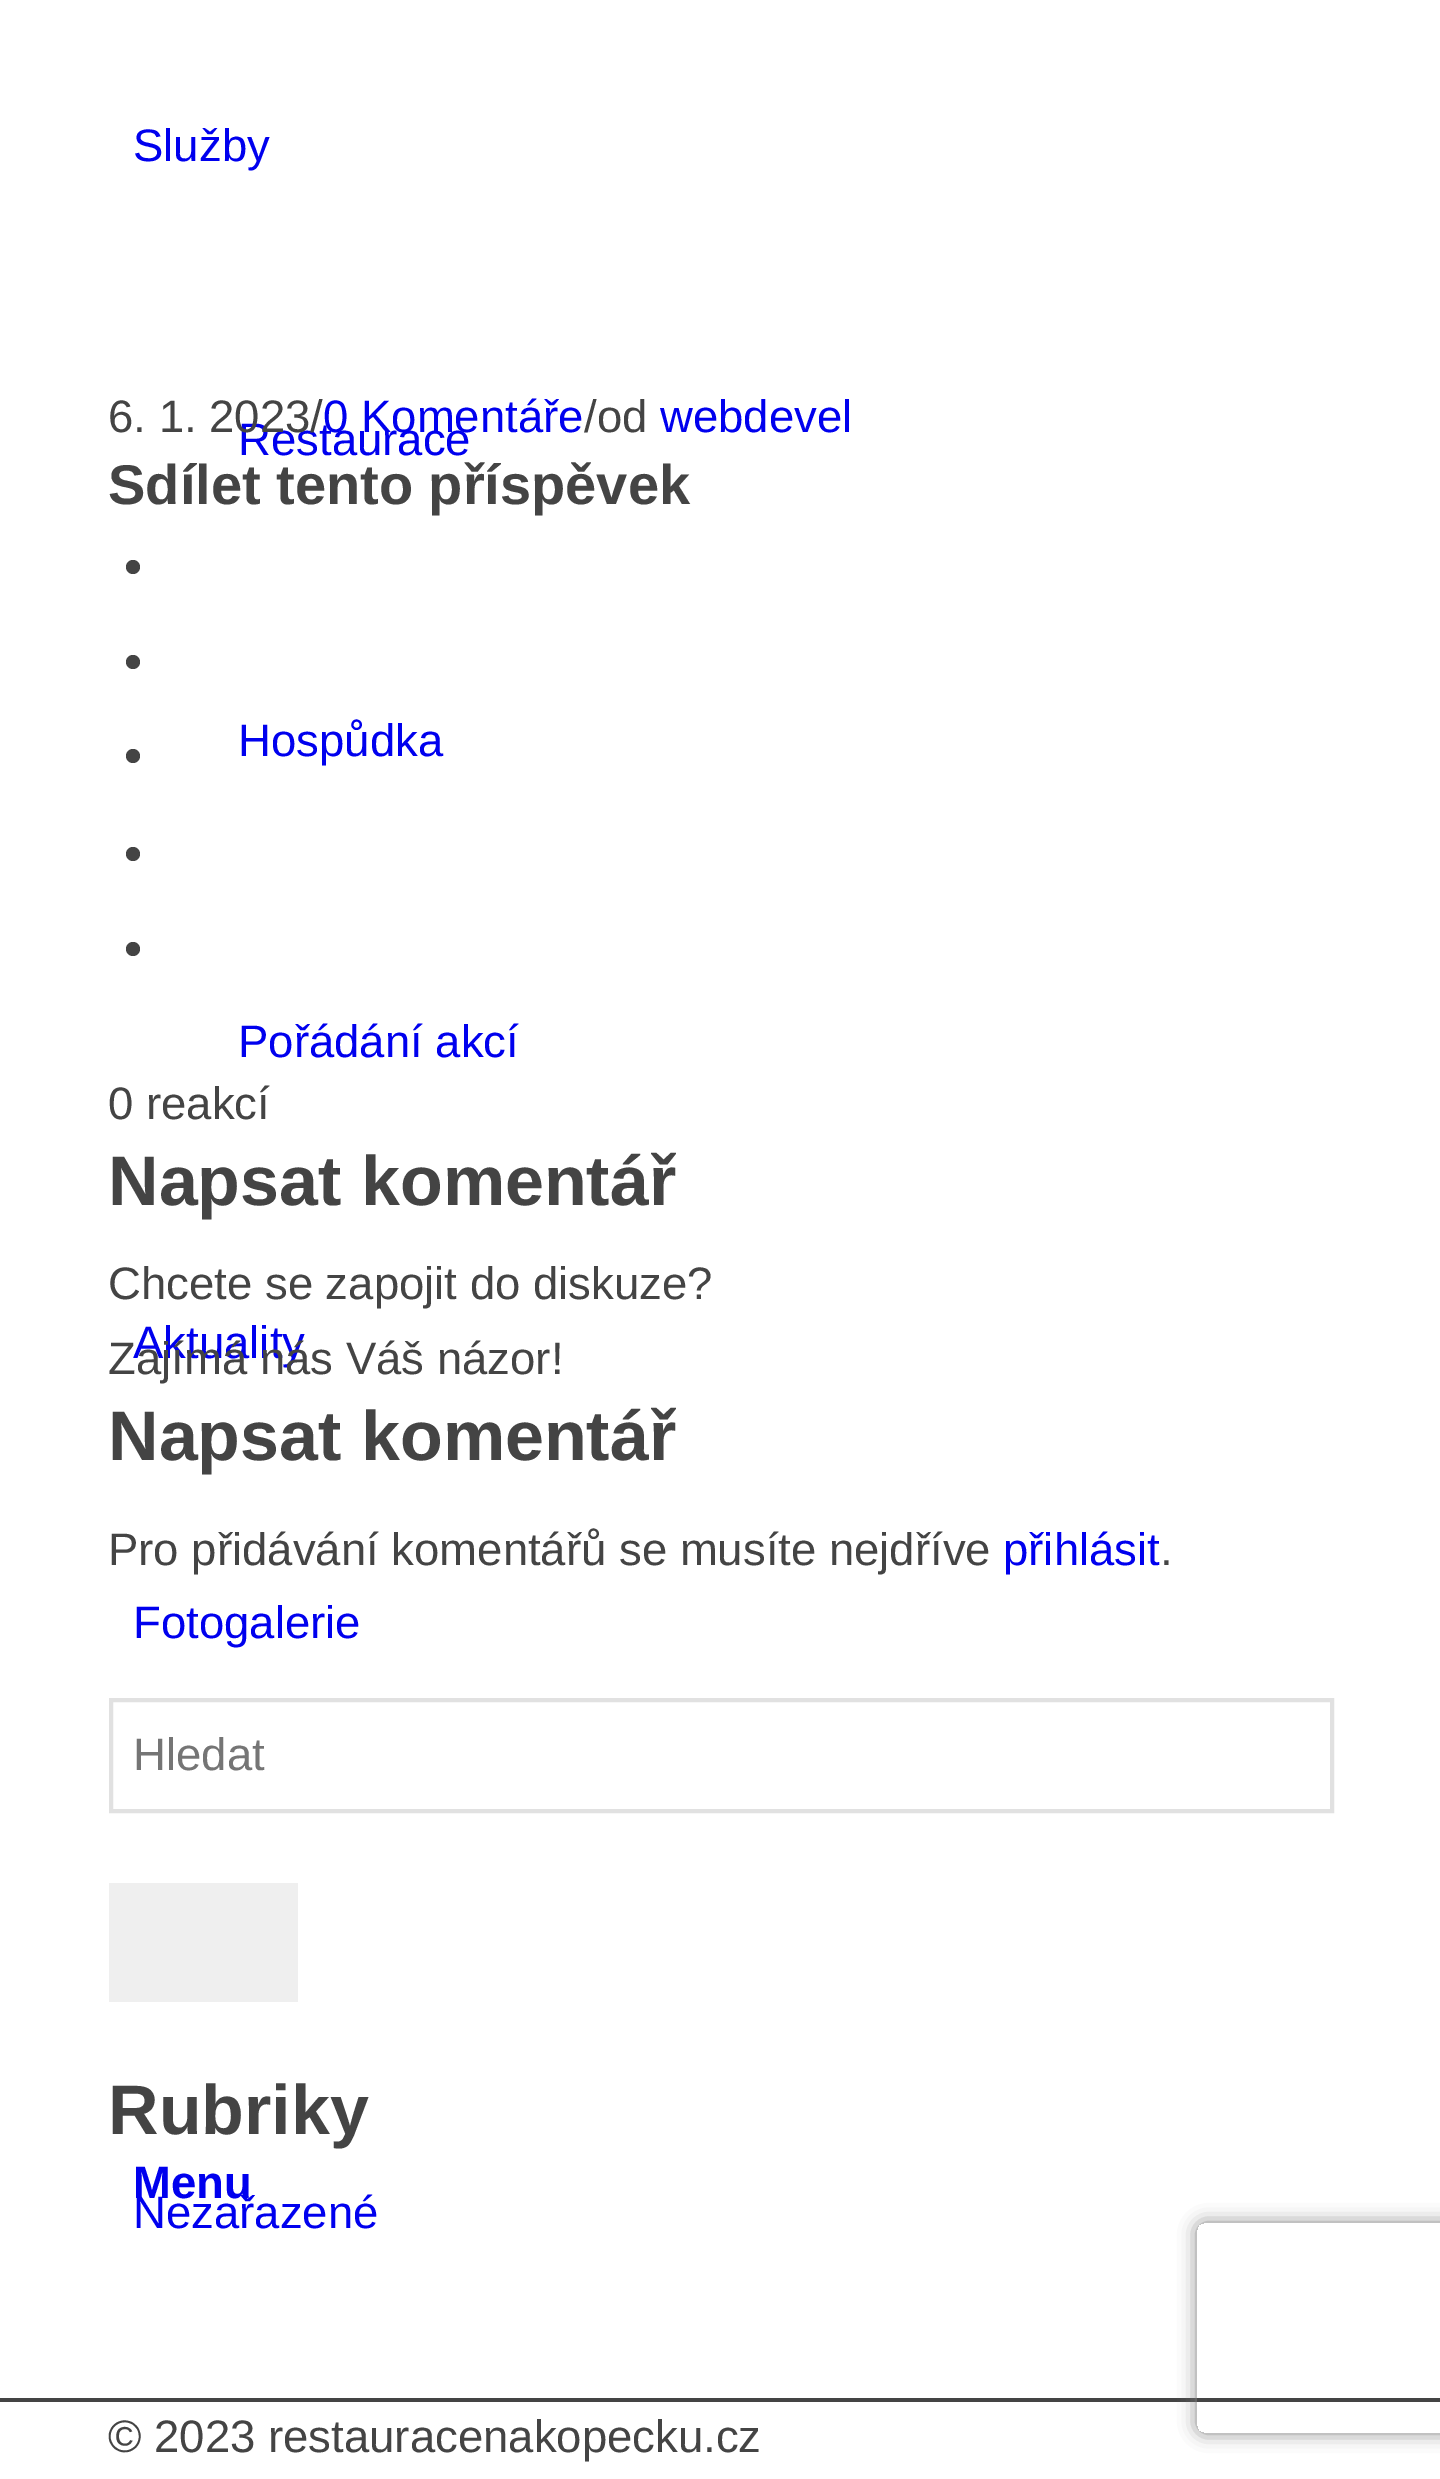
%!PS
<< /PageSize [1440 2479] /PageUsesTransparency true >> setpagedevice
/m/moveto load def
/l/rlineto load def
/c/rcurveto load def
/z/closepath load def
/f/fill load def
/q/gsave load def
/Q_/grestore load def
/w/setlinewidth load def
/C { dup -16 bitshift 255 div exch dup -8 bitshift 255 and 255 div exch 255 and 255 div setrgbcolor } def
/F { [ exch dup neg 0 0 3 -1 roll 0 0 ] selectfont } def
/T { moveto show } def
/R { rectfill } def
/A { dup .setfillconstantalpha .setstrokeconstantalpha } def
/O { newpath 0 360 arc closepath } def
/Q { 5 dict begin { /r /h /w /y /x } { exch def } forall
  x r add y moveto x w add y 2 copy h add r arct x w add y h add x 1 index r arct
  x y h add x y r arct x y 2 copy exch w add exch r arct closepath end } def
/S { 12 dict begin { /a /b /q /h /w /y /x } { exch def } forall gsave /was 0 def
  9 -2 -9 { dup b mul 4 div /e exch def 1 sub .425 mul 2.718 exch exp 1 add a .99 .min exch div /now exch def
    1 1 now sub 1 was sub div sub A /was now def
    w h .min e 2 mul add 0 gt { x e sub y e sub w e 2 mul add h e 2 mul add
      q e add b .6 mul add w h .min 2 div e add .min 0 .max Q fill } if } for grestore end } def
0 .pushpdf14devicefilter
0 2479 translate 1 -1 scale
4 setmiterlimit
16#FFFFFF C
0 0 1440 2479 R
/LiberationSans-Regular 45.5 F
16#0000EE C
(Služby) 133 161 T
(Restaurace) 238 455 T
(Hospůdka) 238 756 T
(Pořádání akcí) 238 1057 T
(Aktuality) 133 1358 T
(Fotogalerie) 133 1638 T
/LiberationSans-Bold 45.5 F
(Menu) 133 2198 T
/LiberationSans-Regular 45.5 F
16#444444 C
(6. 1. 2023/) 108 432 T
16#0000EE C
(0 Komentáře) 323 432 T
16#444444 C
(/od) 584 432 T
16#0000EE C
(webdevel) 660 432 T
/LiberationSans-Bold 56 F
16#444444 C
(Sdílet tento příspěvek) 108 504 T
133 567 7 O f
133 662 7 O f
133 756 7 O f
133 854 7 O f
133 949 7 O f
/LiberationSans-Regular 45.5 F
(0 reakcí) 108 1119 T
/LiberationSans-Bold 70 F
(Napsat komentář) 108 1205 T
/LiberationSans-Regular 45.5 F
(Chcete se zapojit do diskuze?) 108 1299 T
(Zajímá nás Váš názor!) 108 1374 T
/LiberationSans-Bold 70 F
(Napsat komentář) 108 1460 T
/LiberationSans-Regular 45.5 F
(Pro přidávání komentářů se musíte nejdříve) 108 1565 T
16#0000EE C
(přihlásit) 1003 1565 T
16#444444 C
(.) 1160 1565 T
16#E1E1E1 C
4 w
111 1700 1221 111 rectstroke
16#757575 C
(Hledat) 133 1770 T
16#EFEFEF C
109 1883 189 119 R
/LiberationSans-Bold 70 F
16#444444 C
(Rubriky) 108 2134 T
/LiberationSans-Regular 45.5 F
16#0000EE C
(Nezařazené) 133 2228 T
16#444444 C
0 2398 1440 4 R
(© 2023 restauracenakopecku.cz) 108 2452 T
q
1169 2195 m 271 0 l 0 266 l -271 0 l z 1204 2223 m 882 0 l 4 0 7 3 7 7 c 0 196 l 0 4 -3 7 -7 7 c -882 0 l -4 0 -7 -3 -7 -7 c 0 -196 l 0 -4 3 -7 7 -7 c z eoclip newpath
16#808080 C
1197 2223 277 210 7 9 1 S
Q_
.poppdf14devicefilter showpage
